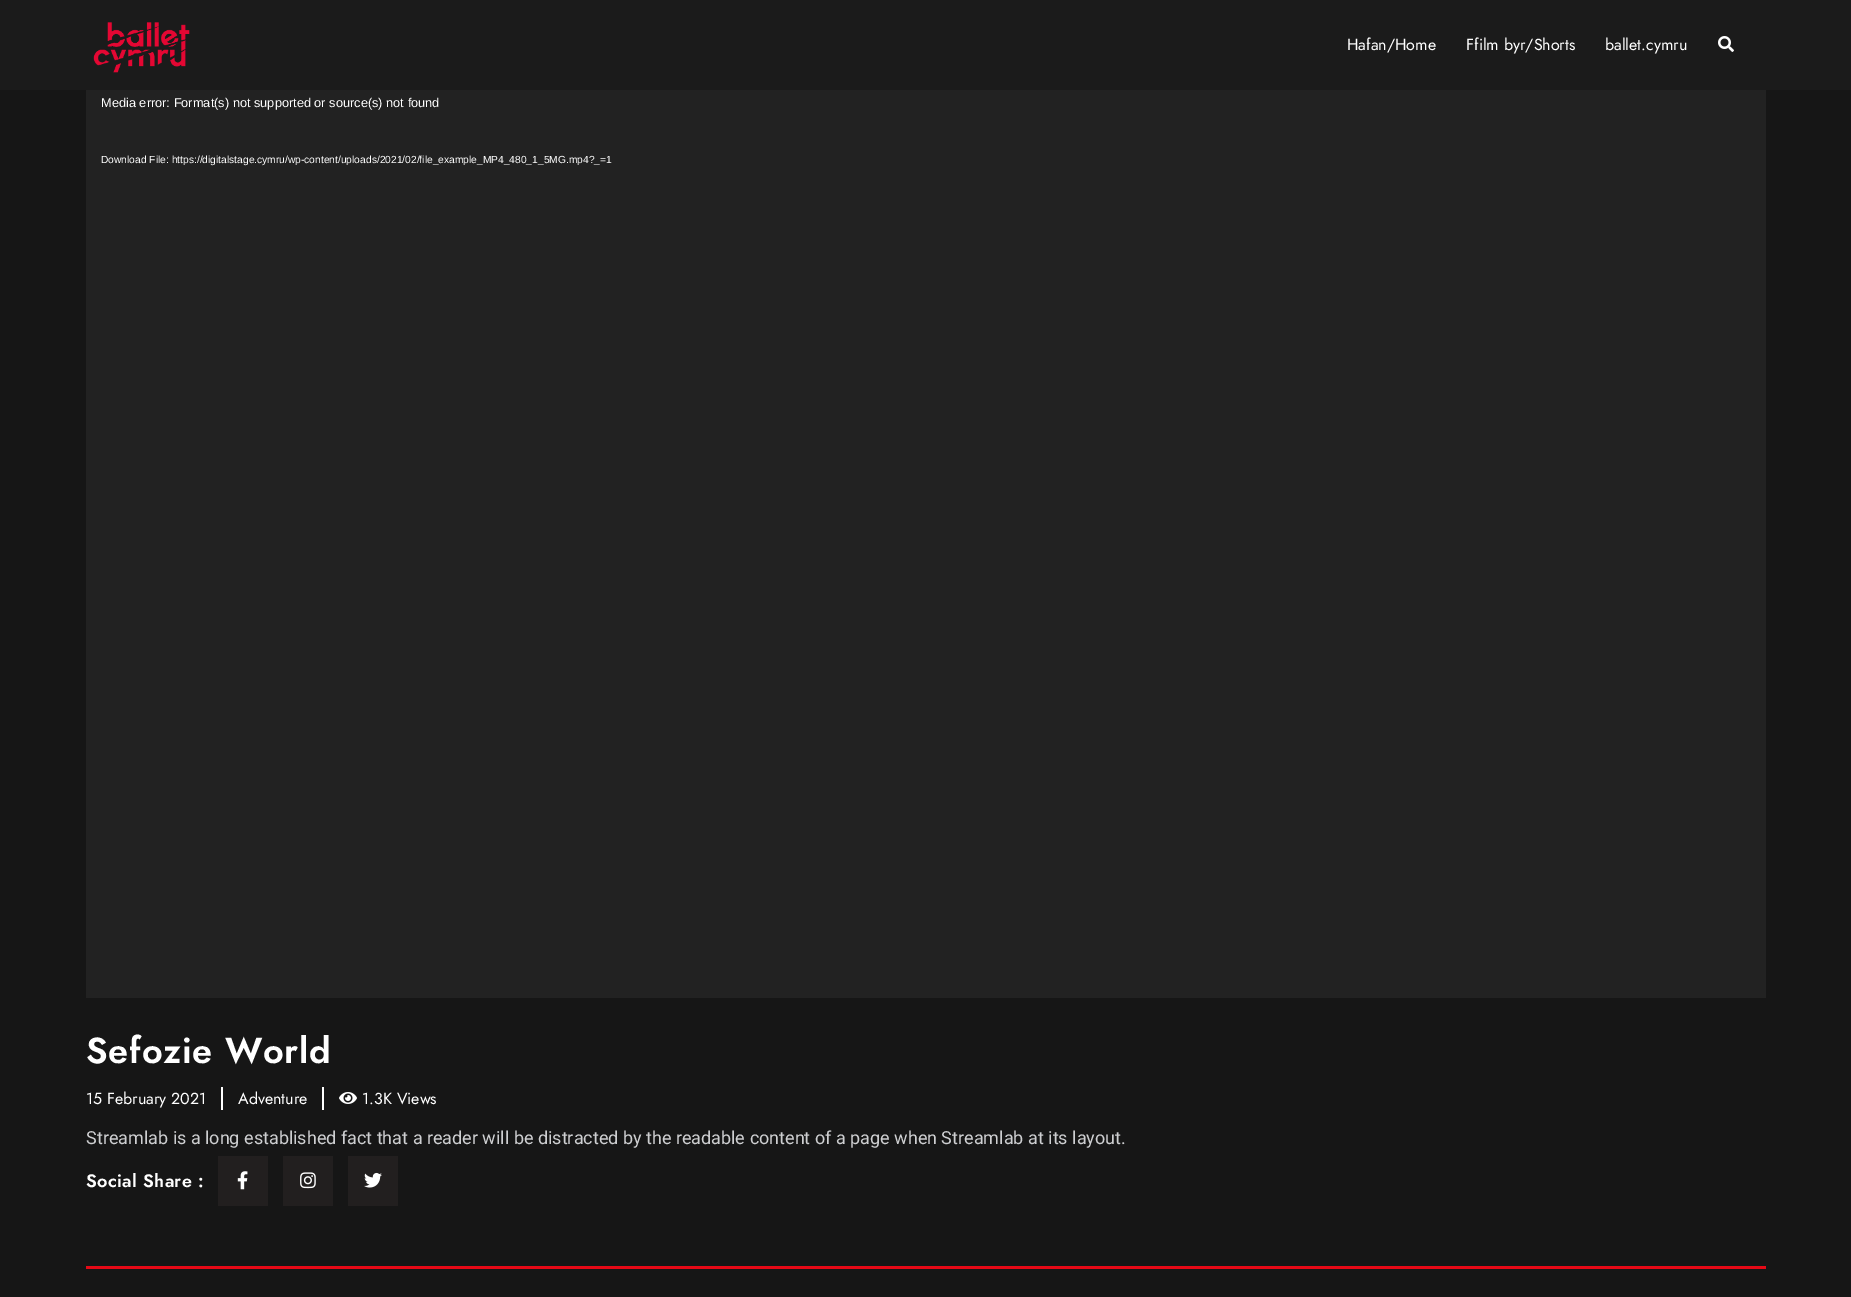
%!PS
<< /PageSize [1851 1297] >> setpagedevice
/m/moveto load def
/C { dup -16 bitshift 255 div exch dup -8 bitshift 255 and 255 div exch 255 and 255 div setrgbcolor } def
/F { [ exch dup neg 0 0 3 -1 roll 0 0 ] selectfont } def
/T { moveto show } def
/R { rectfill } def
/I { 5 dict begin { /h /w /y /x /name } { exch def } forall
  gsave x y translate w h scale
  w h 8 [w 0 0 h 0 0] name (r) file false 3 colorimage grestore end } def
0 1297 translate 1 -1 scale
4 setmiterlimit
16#161616 C
0 0 1851 1297 R
16#1B1B1B C
0 0 1851 90 R
(1.rgb) 93 22 97 51 I
/Jost-Regular 16 F
16#FFFFFF C
(Hafan/Home) 1347 50 T
(Ffilm byr/Shorts) 1466 50 T
(ballet.cymru) 1605 50 T
(2.rgb) 1718 36 16 16 I
16#222222 C
86 90 1680 908 R
/LiberationSans-Regular 12.8 F
16#FFFFFF C
(Media error: Format\(s\) not supported or source\(s\) not found) 101 107 T
/LiberationSans-Regular 10.25 F
(Download File: https://digitalstage.cymru/wp-content/uploads/2021/02/file_example_MP4_480_1_5MG.mp4?_=1) 101 163 T
/Jost-SemiBold 36 F
86 1063 m .75 0 (Sefozie World) ashow
221 1087 2 23 R
/Jost-Regular 16 F
(15 February 2021) 86 1104 T
322 1087 2 23 R
(Adventure) 238 1104 T
(3.rgb) 339 1092 18 12 I
(1.3K Views) 362 1104 T
/Roboto-Regular 18 F
16#CECFD1 C
(Streamlab is a long established fact that a reader will be distracted by the readable content of a page when Streamlab at its layout.) 86 1144 T
16#E50916 C
86 1266 1680 3 R
/Jost-SemiBold 18 F
16#FFFFFF C
86 1187 m .4 0 (Social Share :) ashow
16#221F1F C
218 1156 50 50 R
(4.rgb) 237 1171 11 19 I
283 1156 50 50 R
(5.rgb) 300 1172 16 17 I
348 1156 50 50 R
(6.rgb) 364 1172 18 16 I
showpage
